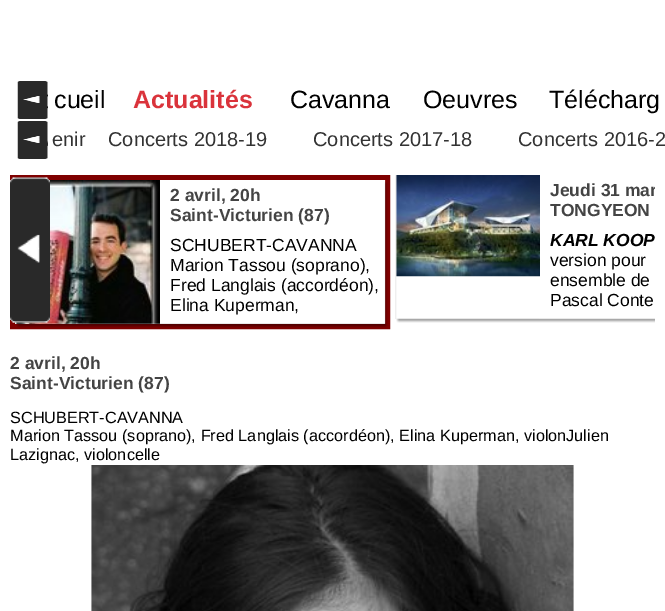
%!PS
<< /PageSize [665 611] >> setpagedevice
/q/gsave load def
/Q_/grestore load def
/w/setlinewidth load def
/C { dup -16 bitshift 255 div exch dup -8 bitshift 255 and 255 div exch 255 and 255 div setrgbcolor } def
/F { [ exch dup neg 0 0 3 -1 roll 0 0 ] selectfont } def
/T { moveto show } def
/R { rectfill } def
/I { 5 dict begin { /h /w /y /x /name } { exch def } forall
  gsave x y translate w h scale
  w h 8 [w 0 0 h 0 0] name (r) file false 3 colorimage grestore end } def
0 611 translate 1 -1 scale
4 setmiterlimit
16#FFFFFF C
0 0 665 611 R
(1.rgb) 17 81 31 38 I
/LiberationSans-Regular 25 F
16#000000 C
(cueil) 54 108 T
/LiberationSans-Bold 25 F
16#DA333B C
(Actualités) 133 108 T
/LiberationSans-Regular 25 F
16#000000 C
(Cavanna) 290 108 T
(Oeuvres) 423 108 T
(Télécharg) 549 108 T
(2.rgb) 17 121 31 38 I
/LiberationSans-Regular 20 F
16#333333 C
(enir) 52 146 T
(Concerts 2018-19) 108 146 T
(Concerts 2017-18) 313 146 T
(Concerts 2016-2) 518 146 T
16#7F0000 C
5 w
12.5 177.5 375 149 rectstroke
16#EFEFEF C
15 322 144 2 R
(5.rgb) 16 180 372 148 I
(6.rgb) 16 180 144 144 I
(3.rgb) 10 177 40 146 I
(4.rgb) 10 177 40 146 I
/LiberationSans-Bold 17.5 F
16#444444 C
(2 avril, 20h) 170 201 T
(Saint-Victurien \(87\)) 170 221 T
/LiberationSans-Regular 17.5 F
16#000000 C
(SCHUBERT-CAVANNA) 170 251 T
(Marion Tassou \(soprano\),) 170 271 T
(Fred Langlais \(accordéon\),) 170 291 T
(Elina Kuperman,) 170 311 T
16#EFEFEF C
395 175 144 144 R
(7.rgb) 396 175 259 148 I
(8.rgb) 396 175 144 102 I
q
550 180 105 43 rectclip
/LiberationSans-Bold 17.5 F
16#444444 C
(Jeudi 31 mar) 550 196 T
Q_
/LiberationSans-Bold 17.5 F
16#444444 C
(TONGYEON) 550 216 T
/LiberationSans-BoldItalic 17.5 F
16#000000 C
(KARL KOOP) 550 246 T
/LiberationSans-Regular 17.5 F
(version pour) 550 266 T
(ensemble de) 550 286 T
(Pascal Conte) 550 306 T
/LiberationSans-Bold 17.5 F
16#444444 C
(2 avril, 20h) 10 369 T
(Saint-Victurien \(87\)) 10 389 T
/LiberationSans-Regular 16.25 F
16#000000 C
(SCHUBERT-CAVANNA) 10 423 T
(Marion Tassou \(soprano\), Fred Langlais \(accordéon\), Elina Kuperman, violonJulien) 10 441 T
(Lazignac, violoncelle) 10 460 T
(9.rgb) 91 465 483 146 I
showpage
